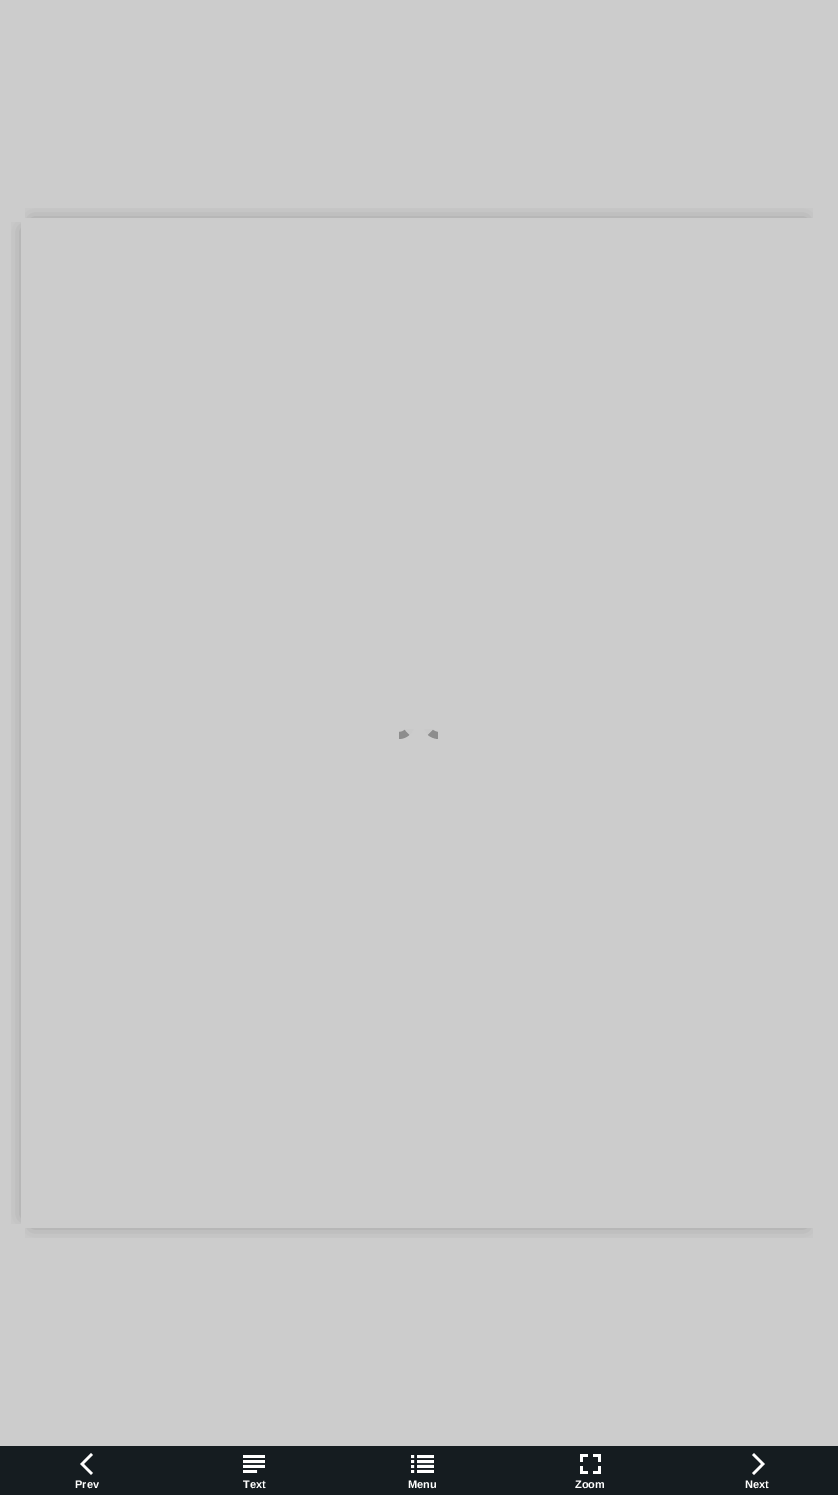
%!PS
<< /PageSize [838 1495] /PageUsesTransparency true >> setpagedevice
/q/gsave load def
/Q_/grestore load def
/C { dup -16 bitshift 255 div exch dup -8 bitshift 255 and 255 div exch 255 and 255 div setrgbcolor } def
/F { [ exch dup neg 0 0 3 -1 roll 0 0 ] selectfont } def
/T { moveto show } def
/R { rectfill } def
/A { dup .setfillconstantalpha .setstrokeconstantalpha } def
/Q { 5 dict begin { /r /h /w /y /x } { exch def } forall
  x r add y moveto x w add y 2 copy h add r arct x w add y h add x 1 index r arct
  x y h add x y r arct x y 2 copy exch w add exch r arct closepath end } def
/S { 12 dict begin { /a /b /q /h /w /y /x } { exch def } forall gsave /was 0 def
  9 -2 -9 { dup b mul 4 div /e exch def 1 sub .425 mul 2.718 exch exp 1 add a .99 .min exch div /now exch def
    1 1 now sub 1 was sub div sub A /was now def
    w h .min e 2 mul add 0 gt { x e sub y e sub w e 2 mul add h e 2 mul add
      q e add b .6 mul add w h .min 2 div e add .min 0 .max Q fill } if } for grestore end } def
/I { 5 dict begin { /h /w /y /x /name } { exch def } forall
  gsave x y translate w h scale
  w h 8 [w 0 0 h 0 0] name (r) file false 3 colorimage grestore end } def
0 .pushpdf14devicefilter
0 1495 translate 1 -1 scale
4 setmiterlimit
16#CCCCCC C
0 0 838 1495 R
q
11 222 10 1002 rectclip
16#000000 C
21 228 776 990 0 7.5 .2 S
Q_
q
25 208 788 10 rectclip
16#000000 C
31 218 776 990 0 7.5 .2 S
Q_
q
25 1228 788 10 rectclip
16#000000 C
31 238 776 990 0 7.5 .2 S
Q_
(1.rgb) 399 729 39 10 I
16#151C20 C
0 1446 838 49 R
(2.rgb) 80 1453 13 22 I
/LiberationSans-Bold 11 F
16#FFFFFF C
(Prev) 75 1488 T
(3.rgb) 243 1455 22 18 I
(Text) 243 1488 T
(4.rgb) 411 1455 23 18 I
(Menu) 408 1488 T
(5.rgb) 580 1454 21 20 I
(Zoom) 575 1488 T
(6.rgb) 752 1453 13 22 I
(Next) 745 1488 T
.poppdf14devicefilter showpage
